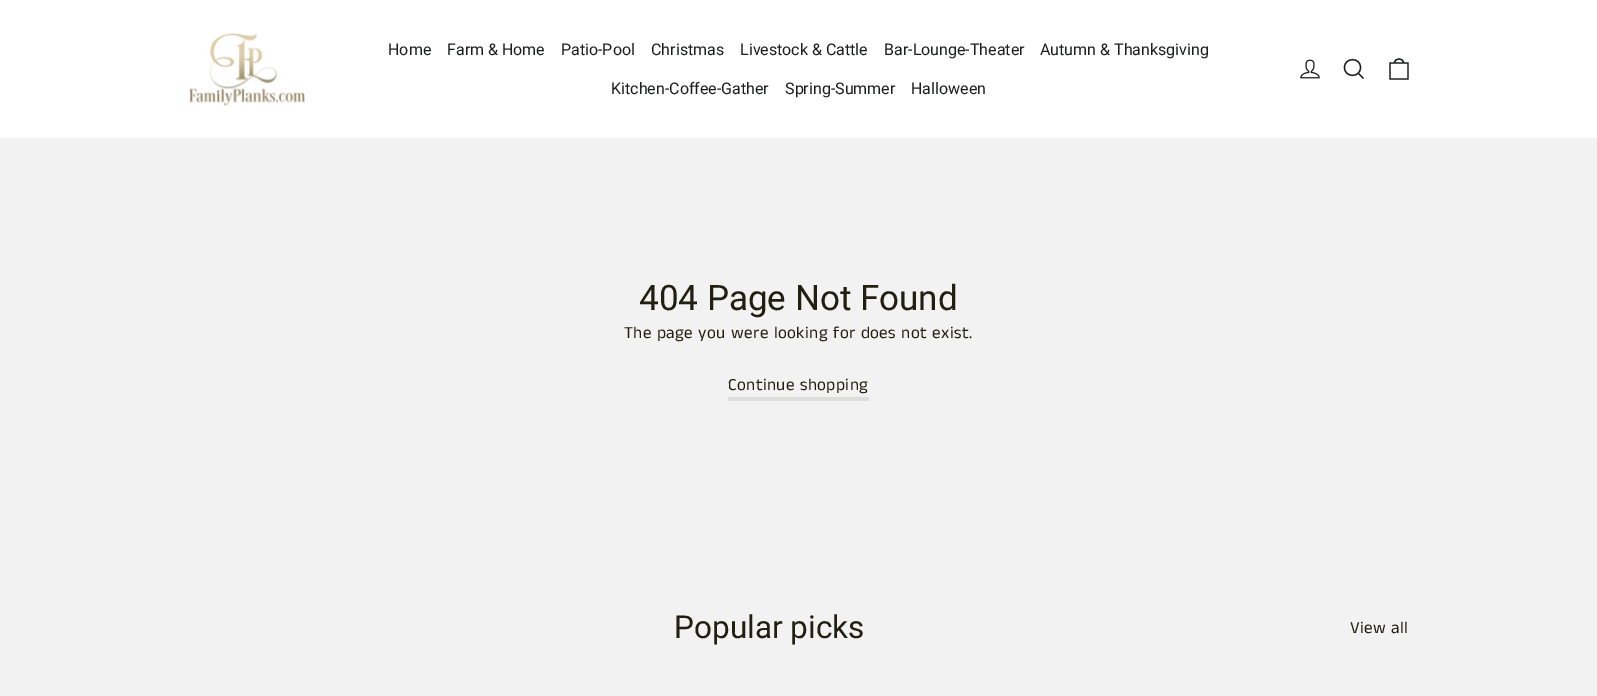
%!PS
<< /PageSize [1597 696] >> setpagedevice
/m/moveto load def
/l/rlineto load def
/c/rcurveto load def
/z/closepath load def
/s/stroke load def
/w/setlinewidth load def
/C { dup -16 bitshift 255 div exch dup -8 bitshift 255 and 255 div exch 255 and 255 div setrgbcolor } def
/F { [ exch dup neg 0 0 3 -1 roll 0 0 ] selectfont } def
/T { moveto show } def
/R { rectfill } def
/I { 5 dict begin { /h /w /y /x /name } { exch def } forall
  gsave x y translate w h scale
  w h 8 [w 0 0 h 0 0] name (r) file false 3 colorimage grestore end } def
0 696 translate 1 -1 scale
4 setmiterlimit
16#F2F2F2 C
0 0 1597 696 R
16#FFFFFF C
0 0 1597 138 R
(1.rgb) 189 33 116 73 I
/Roboto-Regular 16 F
16#1C1D1D C
(Home) 388 55 T
(Farm & Home) 447 55 T
(Patio-Pool) 561 55 T
(Christmas) 651 55 T
(Livestock & Cattle) 740 55 T
(Bar-Lounge-Theater) 884 55 T
(Autumn & Thanksgiving) 1040 55 T
(Kitchen-Coffee-Gather) 611 94 T
(Spring-Summer) 785 94 T
(Halloween) 911 94 T
(2.rgb) 1300 59 20 20 I
1.3 w
1360.5 67.5 m 0 10.5 -16 10.5 -16 0 c 0 -10.5 16 -10.5 16 0 c z 1363.5 78.5 m -5 -5 l s
1390 63 m 18 0 l 0 16 l -18 0 l z 1394.5 63 m 0 -5.5 9 -5.5 9 0 c s
/Roboto-Regular 35 F
16#211F10 C
(404 Page Not Found) 639 310 T
/AnekTamil-Regular 17 F
624 338 m .4 0 (The page you were looking for does not exist.) ashow
728 390 m .4 0 (Continue shopping) ashow
16#DDDDDB C
728 397 141 4 R
/Roboto-Regular 31.5 F
16#211F10 C
(Popular picks) 674 638 T
/AnekTamil-Regular 17 F
1350 633 m .4 0 (View all) ashow
showpage
